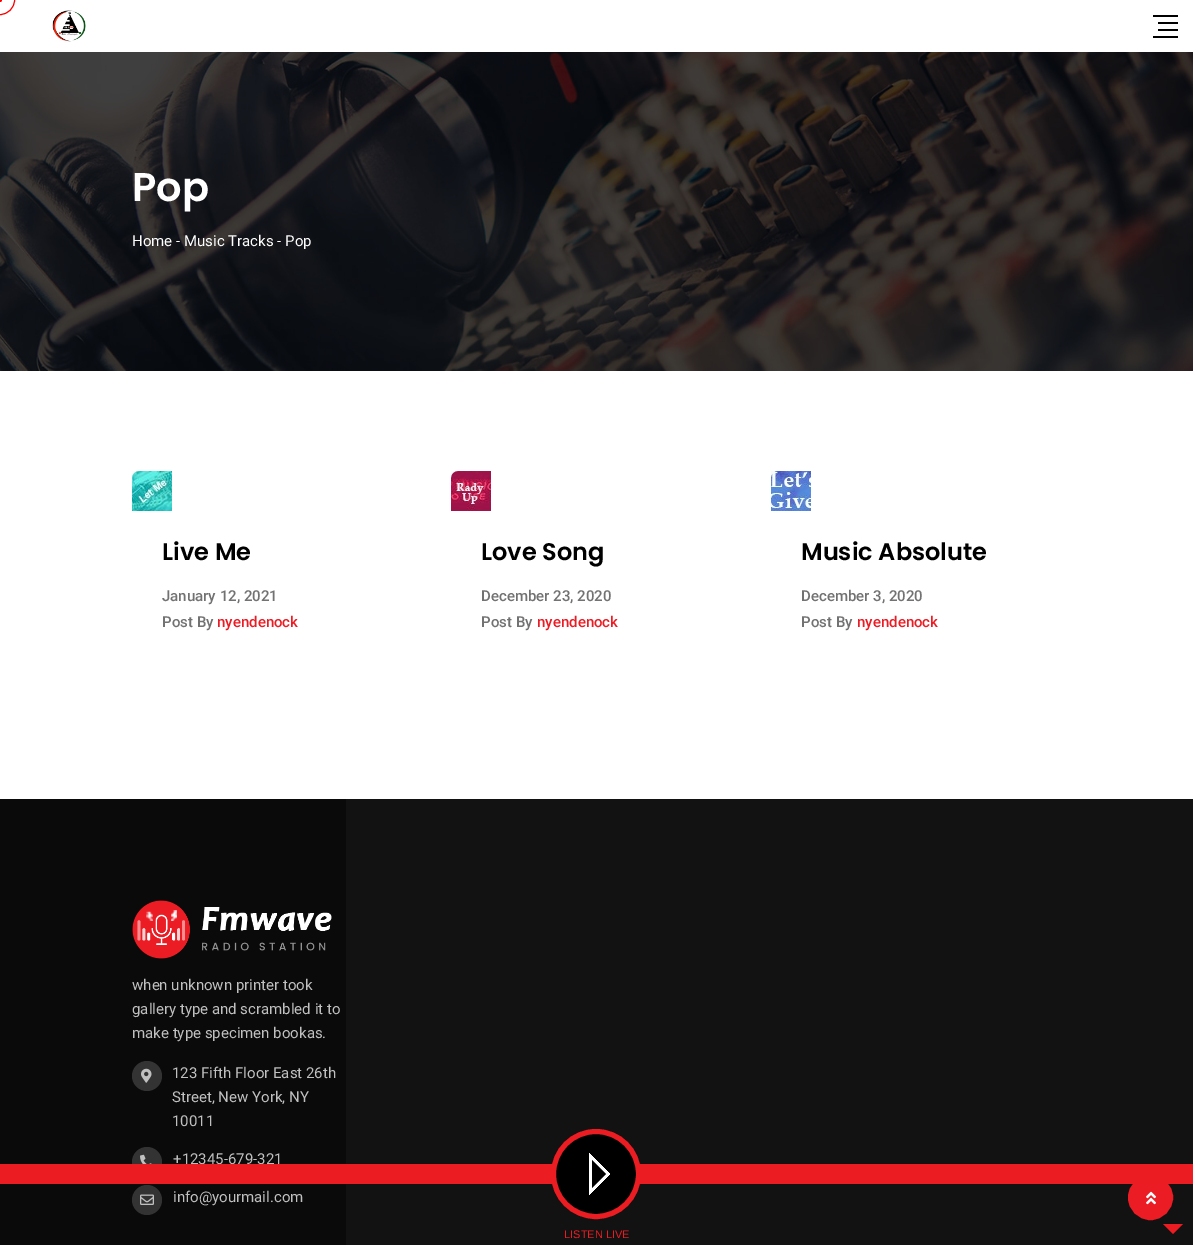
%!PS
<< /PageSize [1193 1245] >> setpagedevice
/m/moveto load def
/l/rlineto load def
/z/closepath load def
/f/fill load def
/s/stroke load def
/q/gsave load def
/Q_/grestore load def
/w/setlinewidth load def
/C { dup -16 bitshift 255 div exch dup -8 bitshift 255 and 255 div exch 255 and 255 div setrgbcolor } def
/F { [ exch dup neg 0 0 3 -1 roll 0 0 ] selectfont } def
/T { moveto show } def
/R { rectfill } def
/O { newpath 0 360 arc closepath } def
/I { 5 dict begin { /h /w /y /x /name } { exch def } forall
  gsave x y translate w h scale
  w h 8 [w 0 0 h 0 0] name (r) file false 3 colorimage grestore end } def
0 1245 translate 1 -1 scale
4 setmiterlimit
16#FFFFFF C
0 0 1193 1245 R
16#FF0000 C
0 0 14.5 O s
0 0 2 O f
(1.rgb) 52 10 34 32 I
16#000000 C
1153 15 25 2 R
1158 22 20 2 R
1158 29 20 2 R
1153 36 25 2 R
(2.rgb) 0 52 1193 319 I
/Poppins-SemiBold 40 F
16#FFFFFF C
(Pop) 132 201 T
/Roboto-Regular 15 F
(Home - Music Tracks - Pop) 132 246 T
(3.rgb) 132 471 40 40 I
/Poppins-SemiBold 24 F
16#000000 C
(Live Me) 162 560 T
/Roboto-Medium 15 F
16#727272 C
(January 12, 2021) 162 601 T
(Post By) 162 627 T
16#EC1C24 C
(nyendenock) 217 627 T
(4.rgb) 451 471 40 40 I
/Poppins-SemiBold 24 F
16#000000 C
(Love Song) 481 560 T
/Roboto-Medium 15 F
16#727272 C
(December 23, 2020) 481 601 T
(Post By) 481 627 T
16#EC1C24 C
(nyendenock) 537 627 T
(5.rgb) 771 471 40 40 I
/Poppins-SemiBold 24 F
16#000000 C
(Music Absolute) 801 560 T
/Roboto-Medium 15 F
16#727272 C
(December 3, 2020) 801 601 T
(Post By) 801 627 T
16#EC1C24 C
(nyendenock) 857 627 T
16#0A0A0A C
0 799 346 446 R
16#121212 C
346 799 847 446 R
(6.rgb) 132 900 200 59 I
/Roboto-Regular 15 F
16#C0C0C0 C
(when unknown printer took) 132 990 T
(gallery type and scrambled it to) 132 1014 T
(make type specimen bookas.) 132 1038 T
16#333333 C
147 1076 15 O f
(7.rgb) 141 1068 11 15 I
16#C0C0C0 C
(123 Fifth Floor East 26th) 172 1078 T
(Street, New York, NY) 172 1102 T
(10011) 172 1126 T
16#333333 C
147 1162 15 O f
(8.rgb) 140 1154 12 10 I
16#C0C0C0 C
(+12345-679-321) 173 1164 T
16#333333 C
147 1200 15 O f
(9.rgb) 140 1194 14 11 I
16#C0C0C0 C
(info@yourmail.com) 173 1202 T
16#EC1C24 C
1150.5 1197.5 21.5 O q f Q_
2 w
s
(10.rgb) 1146 1191 10 14 I
16#EC1C23 C
0 1164 1193 20 R
16#000000 C
596 1174 42.5 O q f Q_
16#EC1C23 C
5 w
s
(11.rgb) 589 1153 21 42 I
/LiberationSans-Regular 11 F
16#EC1C24 C
(LISTEN LIVE) 564 1238 T
16#EC1C23 C
1163 1224 m 20 0 l -10 10 l z f
showpage
